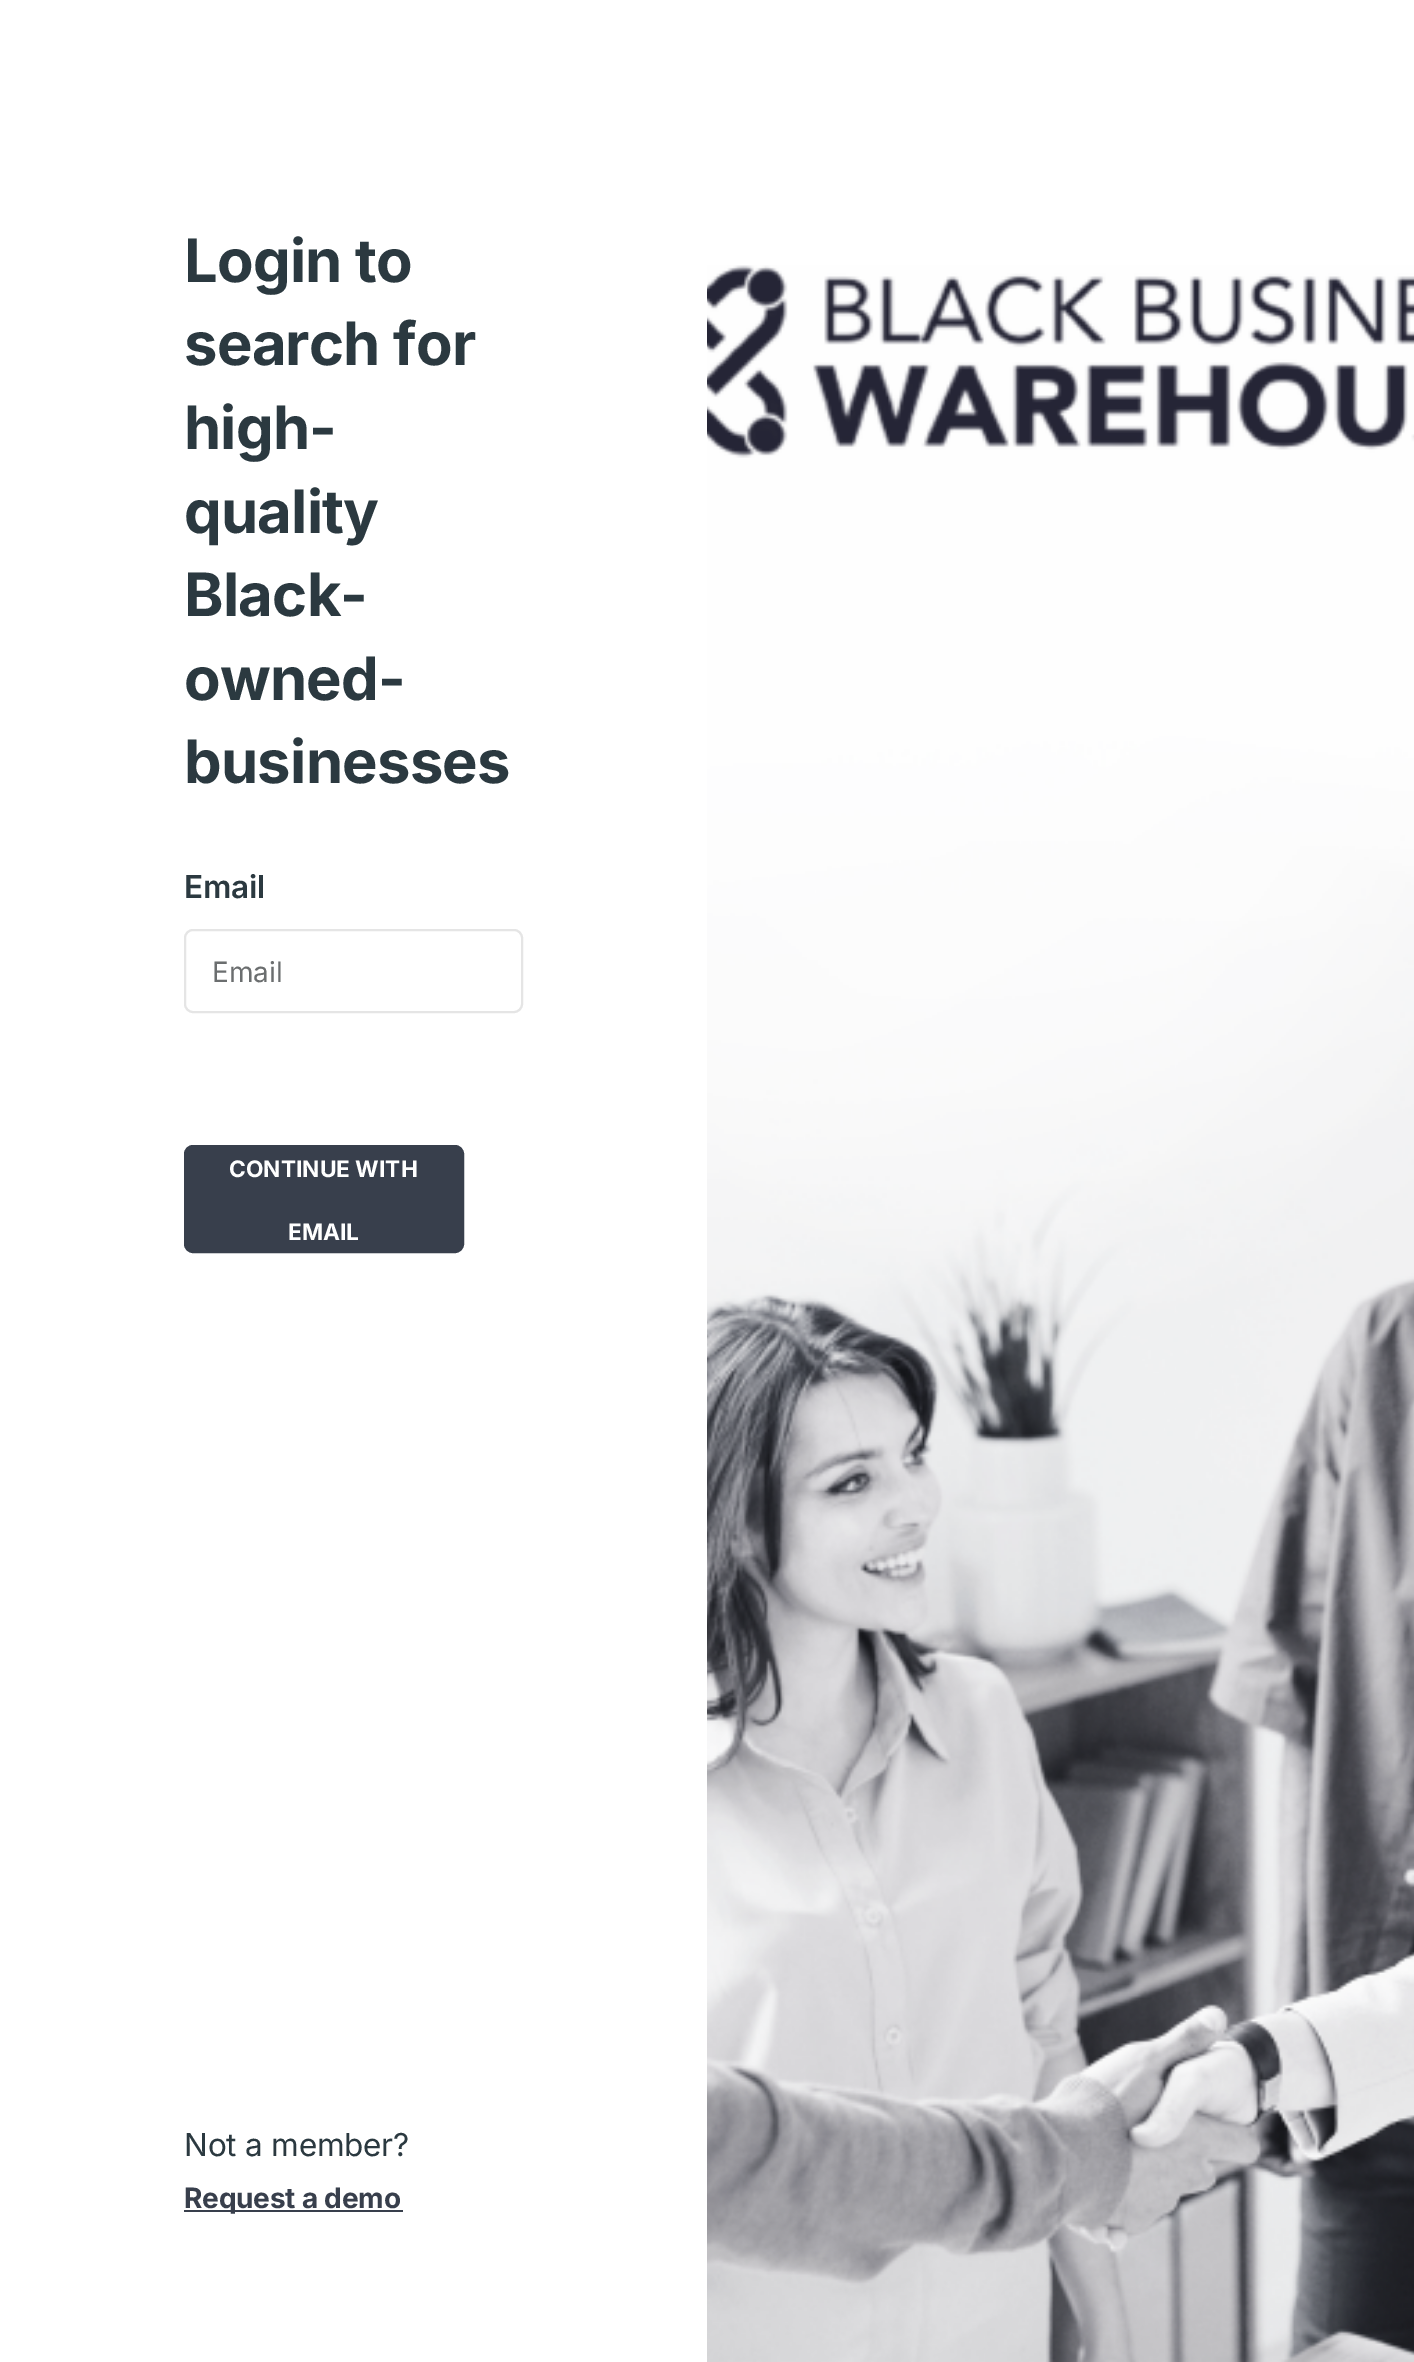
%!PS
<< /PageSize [1414 2362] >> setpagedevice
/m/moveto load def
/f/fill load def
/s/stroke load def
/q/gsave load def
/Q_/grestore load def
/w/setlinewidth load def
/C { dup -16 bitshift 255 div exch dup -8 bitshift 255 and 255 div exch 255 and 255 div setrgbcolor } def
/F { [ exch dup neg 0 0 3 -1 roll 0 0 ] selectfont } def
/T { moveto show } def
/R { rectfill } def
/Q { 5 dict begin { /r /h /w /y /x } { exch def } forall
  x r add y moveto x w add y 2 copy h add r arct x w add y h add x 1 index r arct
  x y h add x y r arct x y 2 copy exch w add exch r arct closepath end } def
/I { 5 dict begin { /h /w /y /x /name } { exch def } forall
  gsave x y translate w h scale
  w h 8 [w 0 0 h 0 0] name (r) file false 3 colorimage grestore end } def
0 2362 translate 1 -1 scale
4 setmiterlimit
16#FFFFFF C
0 0 1414 2362 R
/Inter-Bold 59.75 F
16#2B3940 C
184 282 m -.75 0 (Login to) ashow
184 365 m -.75 0 (search for) ashow
184 449 m -.75 0 (high-) ashow
184 533 m -.75 0 (quality) ashow
184 616 m -.75 0 (Black-) ashow
184 700 m -.75 0 (owned-) ashow
184 783 m -.75 0 (businesses) ashow
/Inter-SemiBold 31.5 F
184 898 m -.2 0 (Email) ashow
16#E5E5E5 C
2 w
185 930 337 82 8 Q s
/Inter-Regular 28 F
16#6B6E6F C
(Email) 212 982 T
16#383F4C C
185 1146 278 106 8 Q q f Q_
s
/Inter-Bold 22.75 F
16#FFFFFF C
(CONTINUE WITH) 229 1177 T
(EMAIL) 288 1240 T
/Inter-Regular 31.5 F
16#2B3940 C
184 2156 m -.2 0 (Not a member?) ashow
16#383F4C C
184 2210 219 2 R
/Inter-Bold 28 F
184 2208 m -.2 0 (Request a demo) ashow
(1.rgb) 707 265 707 2097 I
showpage
